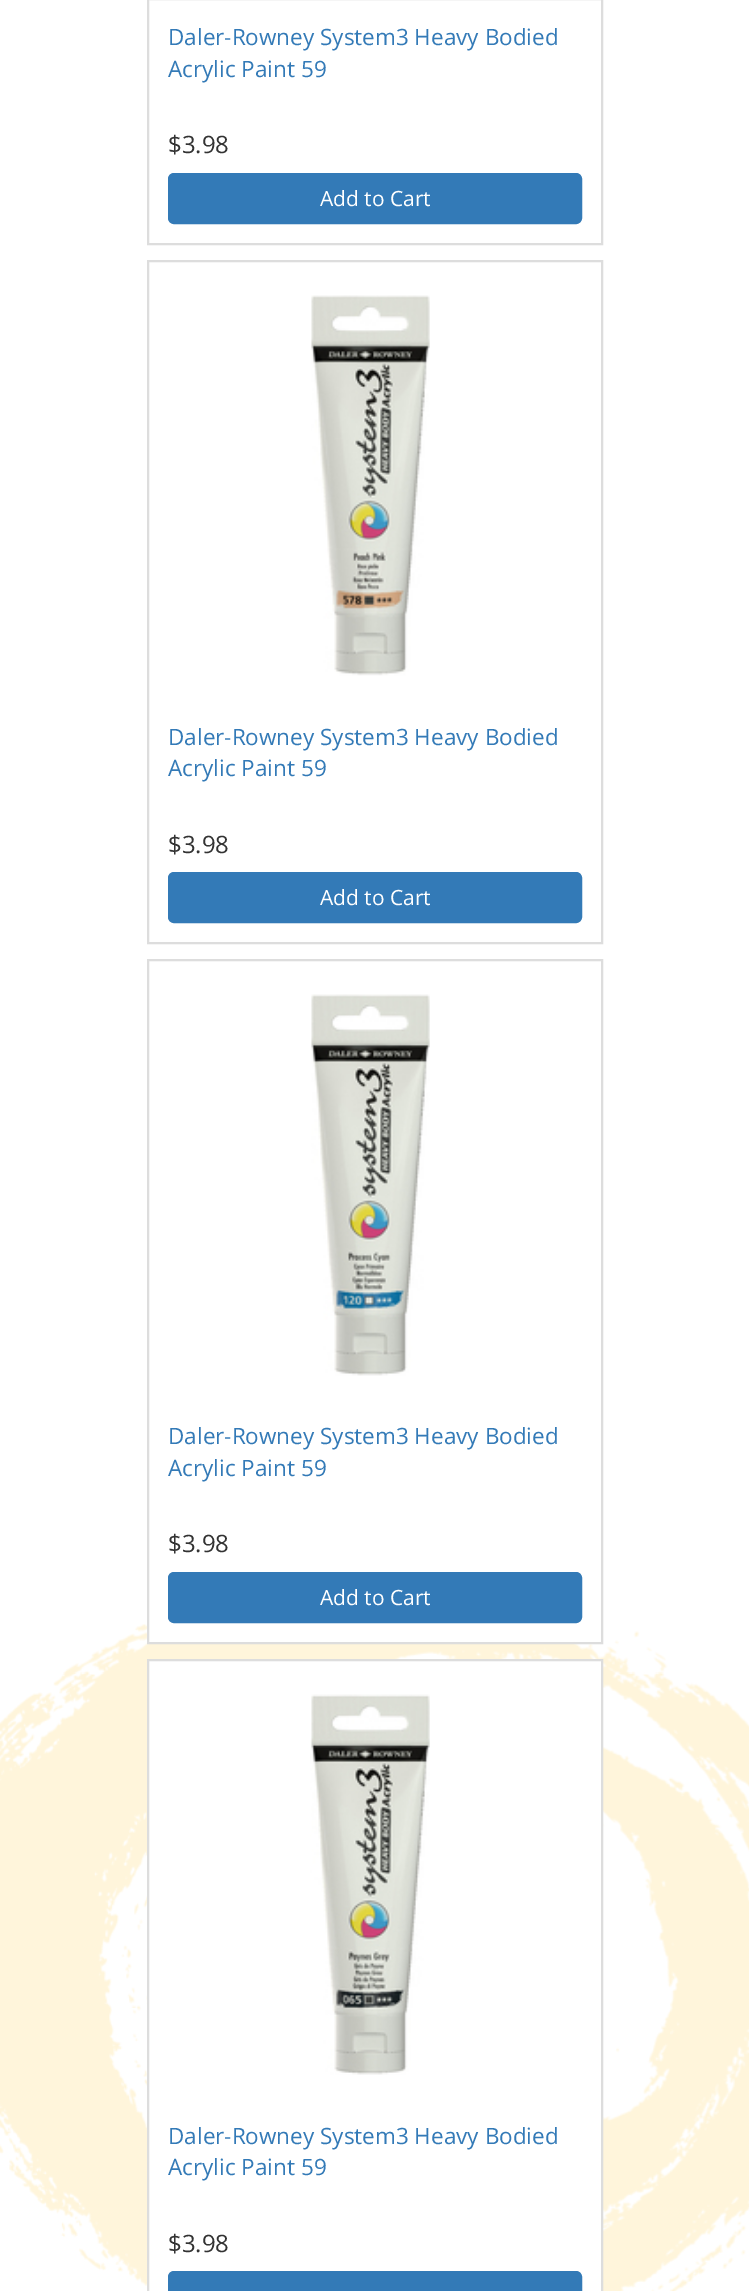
%!PS
<< /PageSize [749 2291] >> setpagedevice
/m/moveto load def
/l/rlineto load def
/z/closepath load def
/f/fill load def
/s/stroke load def
/q/gsave load def
/Q_/grestore load def
/w/setlinewidth load def
/C { dup -16 bitshift 255 div exch dup -8 bitshift 255 and 255 div exch 255 and 255 div setrgbcolor } def
/F { [ exch dup neg 0 0 3 -1 roll 0 0 ] selectfont } def
/T { moveto show } def
/R { rectfill } def
/Q { 5 dict begin { /r /h /w /y /x } { exch def } forall
  x r add y moveto x w add y 2 copy h add r arct x w add y h add x 1 index r arct
  x y h add x y r arct x y 2 copy exch w add exch r arct closepath end } def
/I { 5 dict begin { /h /w /y /x /name } { exch def } forall
  gsave x y translate w h scale
  w h 8 [w 0 0 h 0 0] name (r) file false 3 colorimage grestore end } def
0 2291 translate 1 -1 scale
4 setmiterlimit
16#FFFFFF C
0 0 749 2291 R
(1.rgb) 0 1624 749 667 I
16#DDDDDD C
2 w
148 -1 454 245 rectstroke
/OpenSans-Regular 22.5 F
16#337AB7 C
(Daler-Rowney System3 Heavy Bodied) 168 45 T
(Acrylic Paint 59) 168 77 T
/OpenSans-Regular 24 F
16#333333 C
($3.98) 168 153 T
16#337AB7 C
169 174 412 49 5 Q q f Q_
s
/OpenSans-Regular 21 F
16#FFFFFF C
(Add to Cart) 320 206 T
16#DDDDDD C
148 261 454 682 rectstroke
(2.rgb) 311 295 119 381 I
/OpenSans-Regular 22.5 F
16#337AB7 C
(Daler-Rowney System3 Heavy Bodied) 168 745 T
(Acrylic Paint 59) 168 776 T
/OpenSans-Regular 24 F
16#333333 C
($3.98) 168 853 T
16#337AB7 C
169 873 412 49 5 Q q f Q_
s
/OpenSans-Regular 21 F
16#FFFFFF C
(Add to Cart) 320 905 T
149 1624 424 18 R
16#DDDDDD C
148 960 454 683 rectstroke
(3.rgb) 311 994 119 382 I
/OpenSans-Regular 22.5 F
16#337AB7 C
(Daler-Rowney System3 Heavy Bodied) 168 1444 T
(Acrylic Paint 59) 168 1476 T
/OpenSans-Regular 24 F
16#333333 C
($3.98) 168 1552 T
16#337AB7 C
169 1573 412 49 5 Q q f Q_
s
/OpenSans-Regular 21 F
16#FFFFFF C
(Add to Cart) 320 1605 T
148 1660 m 454 0 l 0 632 l -454 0 l z q f Q_
16#DDDDDD C
s
(4.rgb) 310 1694 120 381 I
/OpenSans-Regular 22.5 F
16#337AB7 C
(Daler-Rowney System3 Heavy Bodied) 168 2144 T
(Acrylic Paint 59) 168 2175 T
/OpenSans-Regular 24 F
16#333333 C
($3.98) 168 2252 T
16#337AB7 C
169 2272 412 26 5 Q q f Q_
s
showpage
